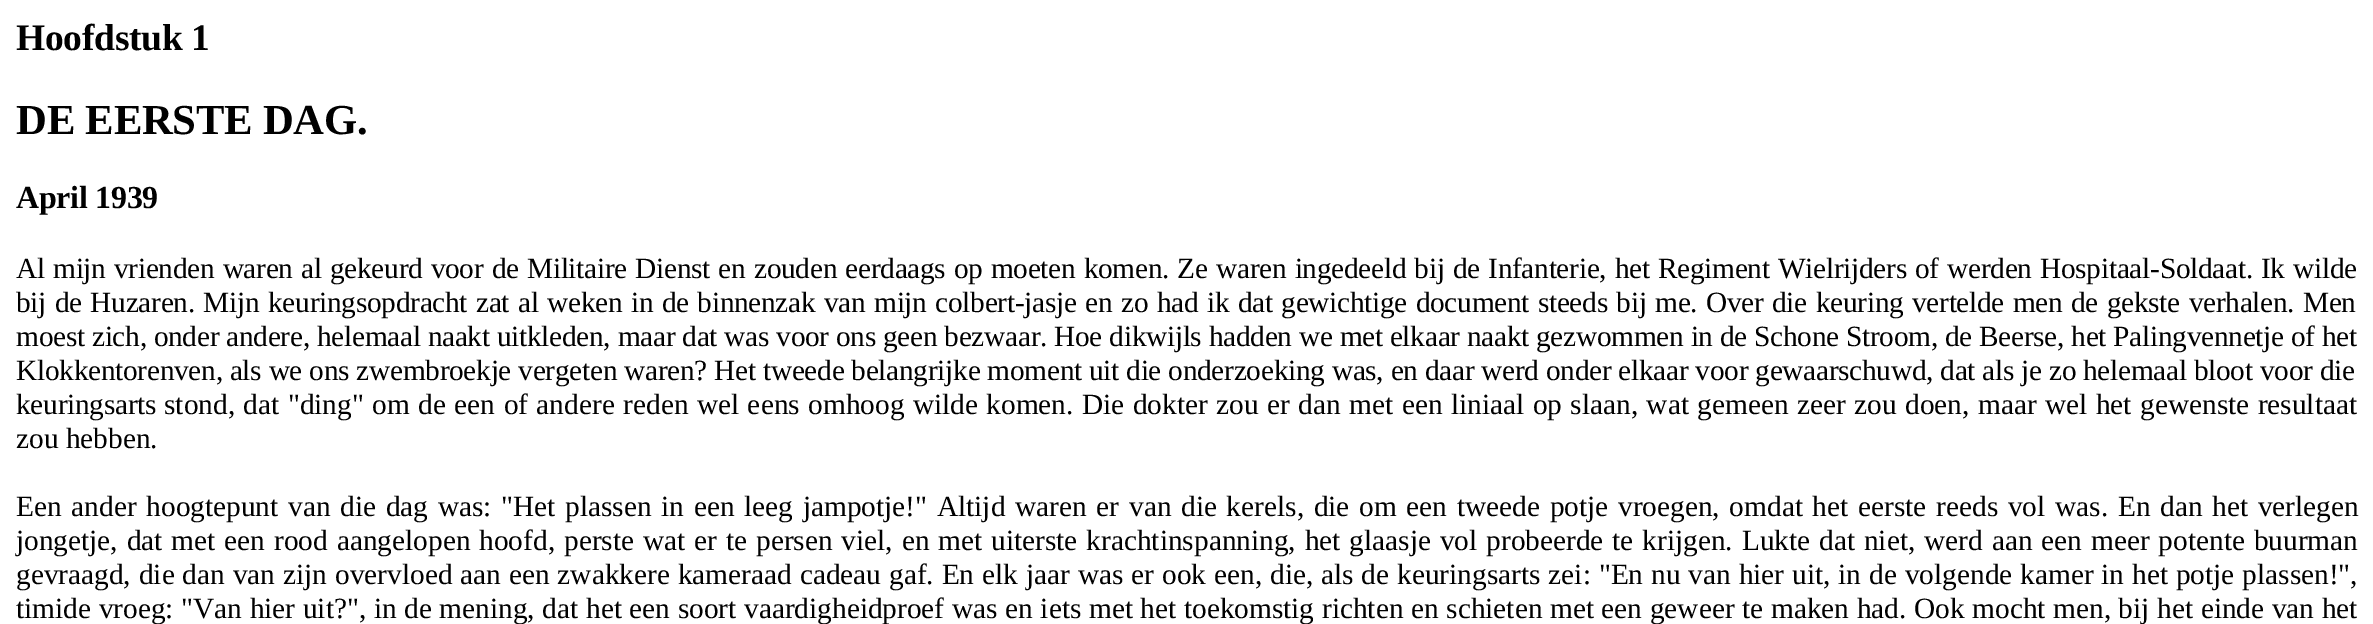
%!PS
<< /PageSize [2373 624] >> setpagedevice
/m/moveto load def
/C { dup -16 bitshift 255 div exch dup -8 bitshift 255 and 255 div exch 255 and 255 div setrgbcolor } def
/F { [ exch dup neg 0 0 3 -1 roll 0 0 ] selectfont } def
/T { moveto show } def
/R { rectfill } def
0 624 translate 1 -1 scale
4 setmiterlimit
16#FFFFFF C
0 0 2373 624 R
/LiberationSerif-Bold 37.5 F
16#000000 C
16 50 m -.27 0 (Hoofdstuk 1) ashow
/LiberationSerif-Bold 42.75 F
16 134 m -.27 0 (DE EERSTE DAG.) ashow
/LiberationSerif-Bold 32 F
16 208 m -.27 0 (April 1939) ashow
/LiberationSerif-Regular 29.33 F
16 278 m 1.15 0 32 -.27 0 (Al mijn vrienden waren al gekeurd voor de Militaire Dienst en zouden eerdaags op moeten komen. Ze waren ingedeeld bij de Infanterie, het Regiment Wielrijders of werden Hospitaal-Soldaat. Ik wilde) awidthshow
16 312 m 1.5 0 32 -.27 0 (bij de Huzaren. Mijn keuringsopdracht zat al weken in de binnenzak van mijn colbert-jasje en zo had ik dat gewichtige document steeds bij me. Over die keuring vertelde men de gekste verhalen. Men) awidthshow
16 346 m -.27 0 (moest zich, onder andere, helemaal naakt uitkleden, maar dat was voor ons geen bezwaar. Hoe dikwijls hadden we met elkaar naakt gezwommen in de Schone Stroom, de Beerse, het Palingvennetje of het) ashow
16 380 m -.27 0 (Klokkentorenven, als we ons zwembroekje vergeten waren? Het tweede belangrijke moment uit die onderzoeking was, en daar werd onder elkaar voor gewaarschuwd, dat als je zo helemaal bloot voor die) ashow
16 414 m -.27 0 (keuringsarts) ashow
164 414 m 1.15 0 32 (stond, dat "ding" om de een of andere reden wel eens omhoog wilde komen. Die dokter zou er dan met een liniaal op slaan, wat gemeen zeer zou doen, maar wel het gewenste resultaat) widthshow
(zou hebben.) 16 448 T
16 516 m 2.4 0 32 (Een ander hoogtepunt van die dag was: "Het plassen in een leeg jampotje!" Altijd waren er van die kerels, die om een tweede potje vroegen, omdat het eerste reeds vol was. En dan het verlegen) widthshow
16 550 m 1.6 0 32 (jongetje, dat met een rood aangelopen hoofd, perste wat er te persen viel, en met uiterste krachtinspanning, het glaasje vol probeerde te krijgen. Lukte dat niet, werd aan een meer potente buurman) widthshow
16 584 m .6 0 32 (gevraagd, die dan van zijn overvloed aan een zwakkere kameraad cadeau gaf. En elk jaar was er ook een, die, als de keuringsarts zei: "En nu van hier uit, in de volgende kamer in het potje plassen!",) widthshow
16 618 m .3 0 32 (timide vroeg: "Van hier uit?", in de mening, dat het een soort vaardigheidproef was en iets met het toekomstig richten en schieten met een geweer te maken had. Ook mocht men, bij het einde van het) widthshow
showpage
